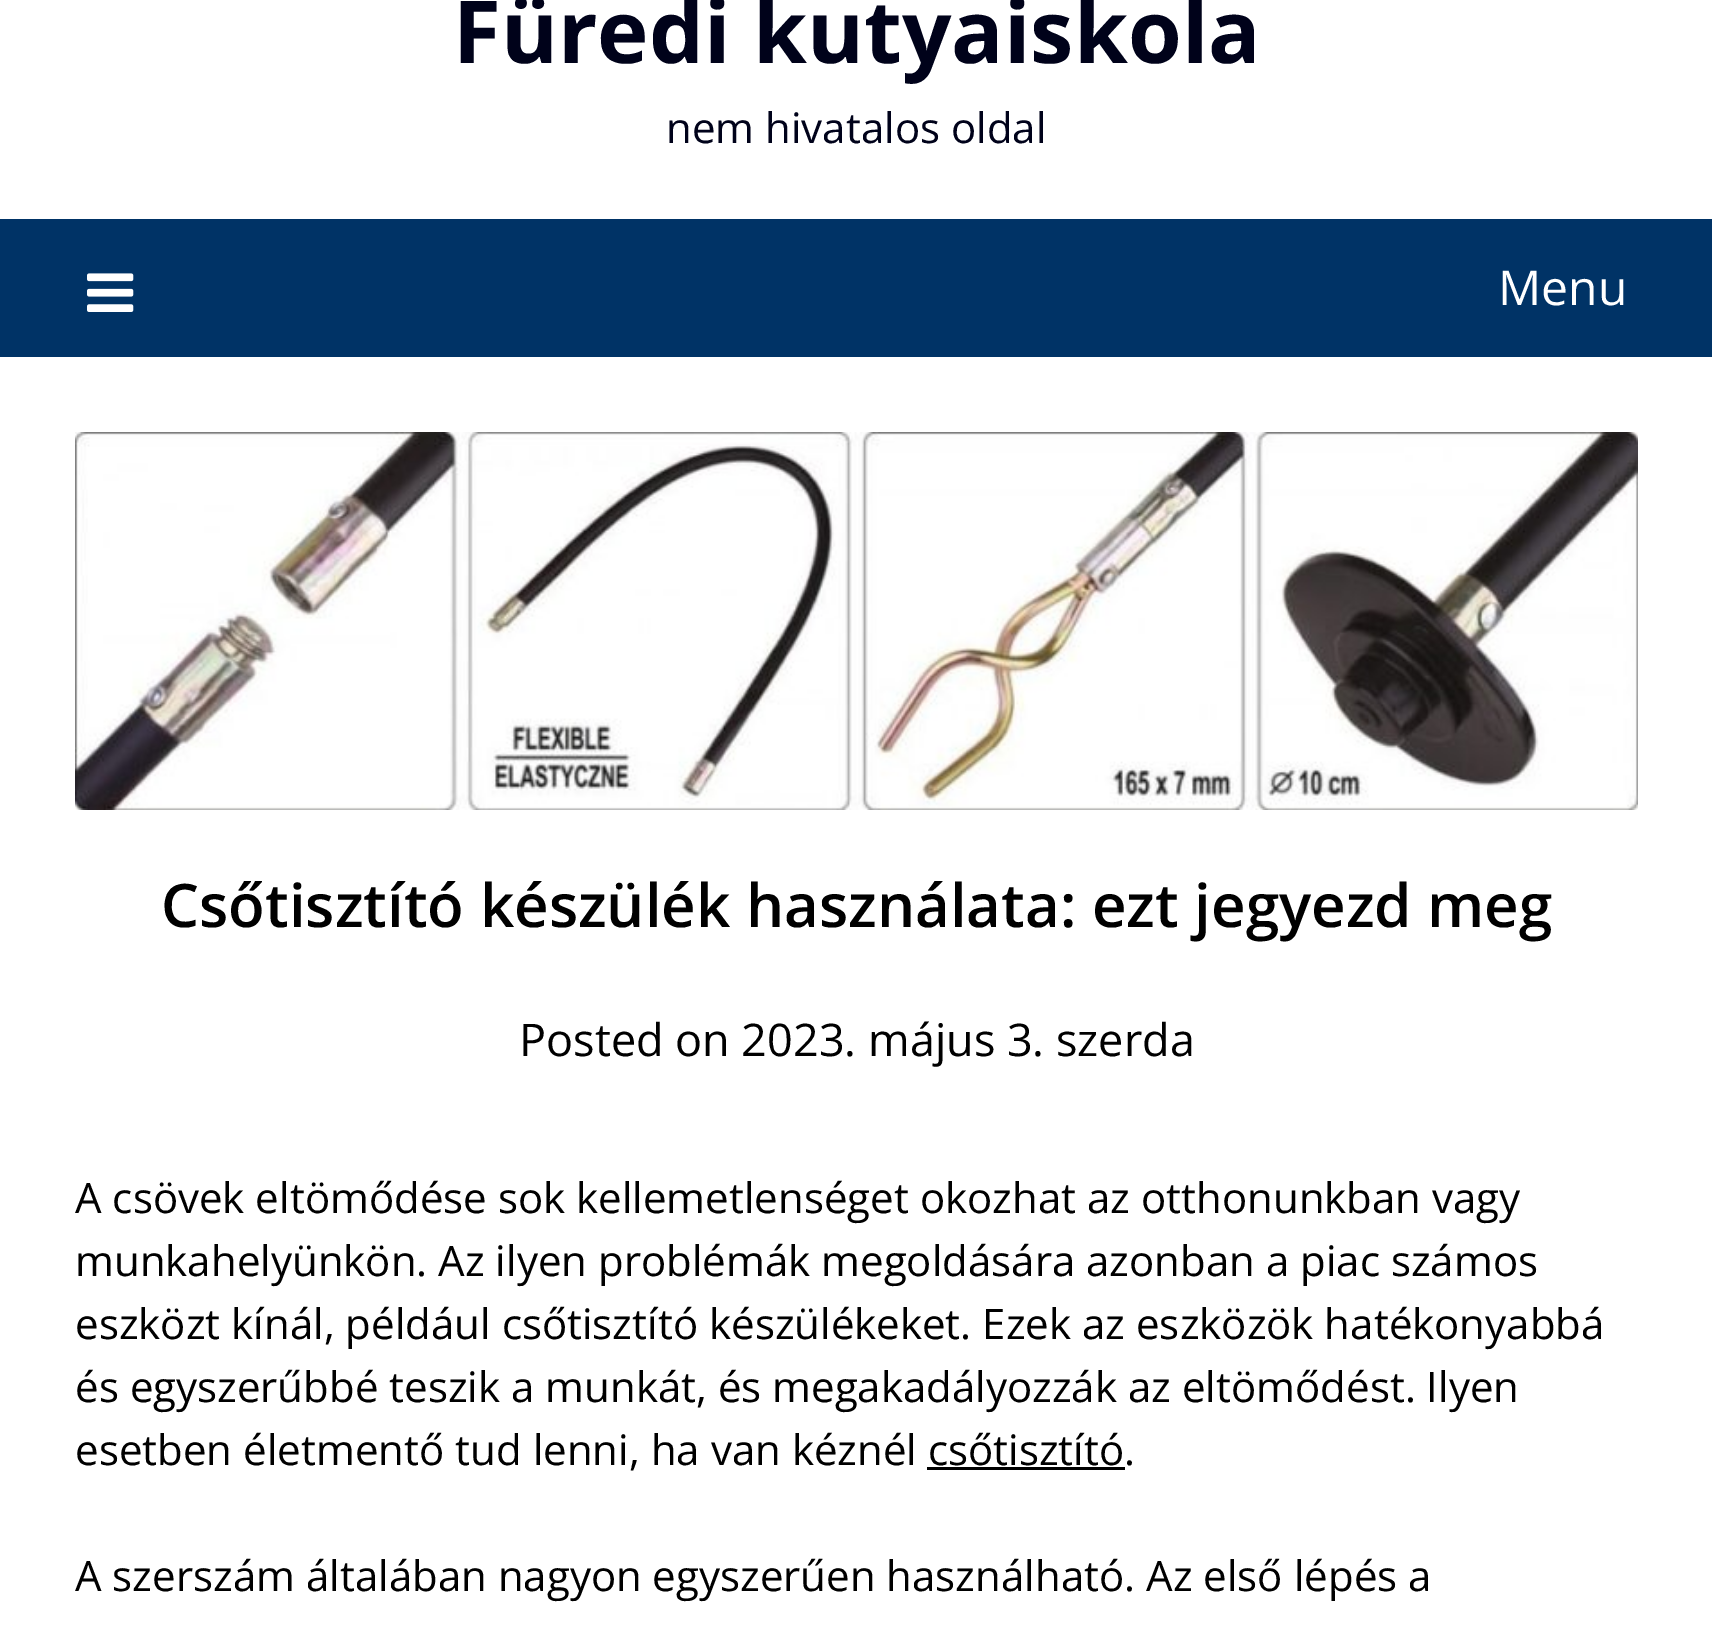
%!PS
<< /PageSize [1712 1641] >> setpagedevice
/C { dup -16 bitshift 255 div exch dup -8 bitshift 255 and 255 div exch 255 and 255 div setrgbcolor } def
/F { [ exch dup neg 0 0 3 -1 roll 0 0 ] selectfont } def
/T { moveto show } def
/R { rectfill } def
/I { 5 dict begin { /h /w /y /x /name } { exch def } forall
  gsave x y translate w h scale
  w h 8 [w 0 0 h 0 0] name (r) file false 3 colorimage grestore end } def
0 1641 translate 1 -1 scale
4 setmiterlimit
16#FFFFFF C
0 0 1712 1641 R
/OpenSans-Bold 87 F
16#00021A C
(Füredi kutyaiskola) 453 63 T
/OpenSans-Regular 42 F
(nem hivatalos oldal) 666 143 T
16#003366 C
0 219 1712 138 R
(1.rgb) 87 273 47 39 I
/OpenSans-Regular 48 F
16#FFFFFF C
(Menu) 1498 305 T
(2.rgb) 75 432 1563 378 I
/OpenSans-SemiBold 60 F
16#000000 C
(Csőtisztító készülék használata: ezt jegyezd meg) 161 927 T
/OpenSans-Regular 45 F
(Posted on 2023. május 3. szerda) 519 1056 T
/OpenSans-Regular 42 F
(A csövek eltömődése sok kellemetlenséget okozhat az otthonunkban vagy) 75 1213 T
(munkahelyünkön. Az ilyen problémák megoldására azonban a piac számos) 75 1276 T
(eszközt kínál, például csőtisztító készülékeket. Ezek az eszközök hatékonyabbá) 75 1339 T
(és egyszerűbbé teszik a munkát, és megakadályozzák az eltömődést. Ilyen) 75 1402 T
(esetben életmentő tud lenni, ha van kéznél csőtisztító.) 75 1465 T
927 1467 198 3 R
(A szerszám általában nagyon egyszerűen használható. Az első lépés a) 75 1591 T
showpage
